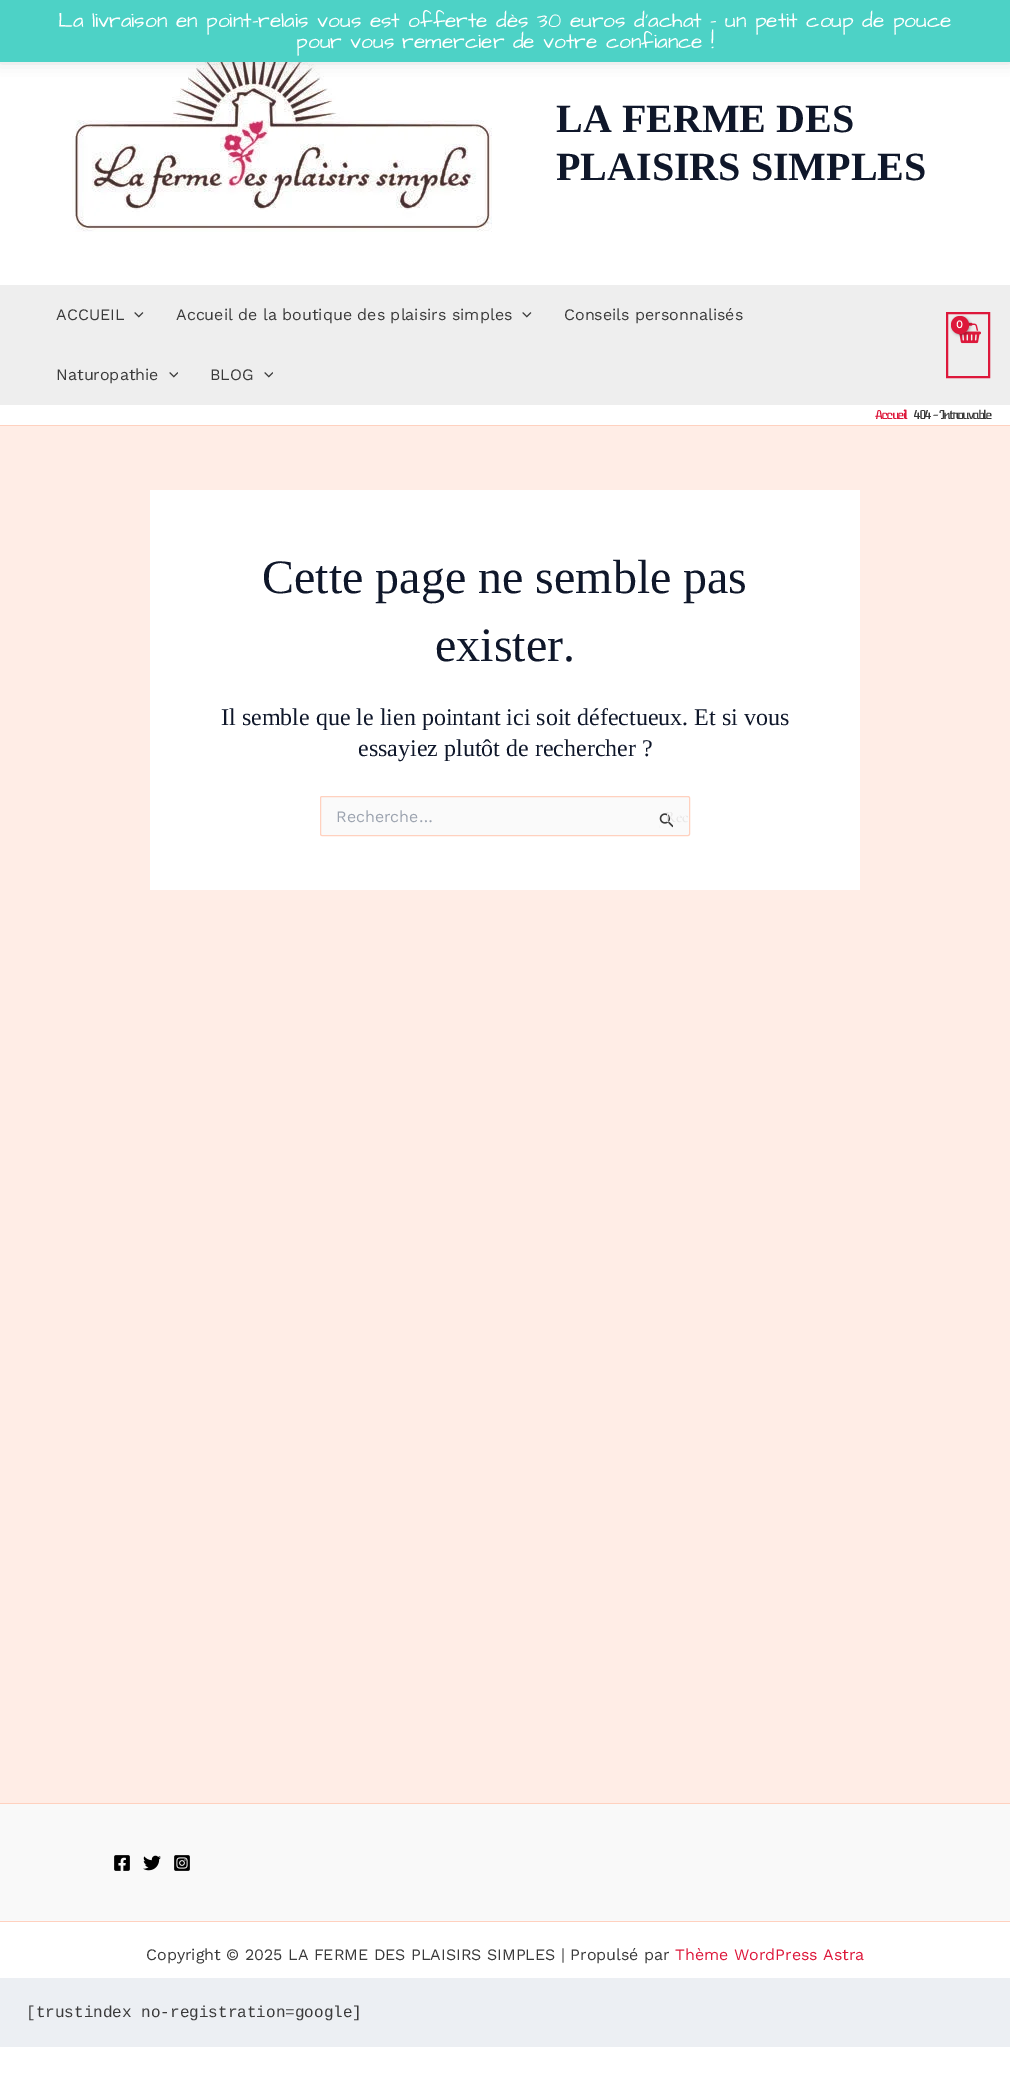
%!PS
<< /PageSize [1010 2093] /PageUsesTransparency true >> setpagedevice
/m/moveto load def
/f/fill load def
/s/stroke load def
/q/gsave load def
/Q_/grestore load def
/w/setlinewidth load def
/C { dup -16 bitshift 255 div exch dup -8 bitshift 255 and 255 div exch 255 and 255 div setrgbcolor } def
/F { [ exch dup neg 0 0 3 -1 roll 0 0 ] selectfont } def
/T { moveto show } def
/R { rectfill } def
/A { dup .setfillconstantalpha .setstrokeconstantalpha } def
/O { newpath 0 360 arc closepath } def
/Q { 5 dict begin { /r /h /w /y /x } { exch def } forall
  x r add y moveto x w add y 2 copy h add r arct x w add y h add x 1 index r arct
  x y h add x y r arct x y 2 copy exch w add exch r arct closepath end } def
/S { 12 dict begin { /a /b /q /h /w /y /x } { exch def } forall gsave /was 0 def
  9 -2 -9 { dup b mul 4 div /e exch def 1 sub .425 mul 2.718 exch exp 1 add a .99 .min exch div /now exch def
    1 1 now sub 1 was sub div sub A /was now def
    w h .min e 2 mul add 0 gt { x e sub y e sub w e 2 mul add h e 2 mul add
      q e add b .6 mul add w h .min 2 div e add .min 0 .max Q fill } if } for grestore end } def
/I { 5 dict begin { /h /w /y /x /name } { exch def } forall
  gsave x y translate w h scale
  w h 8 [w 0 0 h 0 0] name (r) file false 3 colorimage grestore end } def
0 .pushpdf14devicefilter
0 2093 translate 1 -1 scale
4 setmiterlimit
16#FFEDE6 C
0 0 1010 2093 R
16#FFFFFF C
0 62 1010 223 R
(1.rgb) 72 62 420 170 I
16#000000 C
0 1 1010 58 0 8 .2 S
16#4DD2C6 C
0 0 1010 62 R
/ArchitectsDaughter-Regular 21 F
16#FFFFFF C
(La livraison en point-relais vous est offerte dès 30 euros d’achat – un petit coup de pouce) 58 27 T
(pour vous remercier de votre confiance !) 296 48 T
/LiberationSerif-Bold 40 F
16#0F172A C
(LA FERME DES) 556 132 T
(PLAISIRS SIMPLES) 556 180 T
16#EEEEEE C
0 285 1010 120 R
/WorkSans-Regular 16 F
16#3A3A3A C
(ACCUEIL) 56 320 T
(2.rgb) 134 312 10 6 I
(Accueil de la boutique des plaisirs simples) 176 320 T
(2.rgb) 522 312 10 6 I
(Conseils personnalisés) 564 320 T
(Naturopathie) 56 380 T
(3.rgb) 169 372 9 6 I
(BLOG) 210 380 T
(3.rgb) 264 372 9 6 I
16#DD183B C
2 w
947 313 42 64 rectstroke
(4.rgb) 957 322 24 22 I
16#000000 C
952 317 18 18 9 1.5 .3 S
16#DD183B C
960 325 9 O f
/WorkSans-Bold 11 F
16#FFFFFF C
(0) 956 328 T
0 405 1010 20 R
16#FFD1BF C
0 425 1010 1 R
/AtomicAge-Regular 12 F
16#DD183B C
875 419 m -2 0 (Accueil) ashow
16#3A3A3A C
913 419 m -2 0 (404 - Introuvable) ashow
16#FFFFFF C
150 490 710 400 R
/LiberationSerif-Regular 48 F
16#0F172A C
(Cette page ne semble pas) 262 593 T
(exister.) 435 661 T
/LiberationSerif-Regular 24 F
(Il semble que le lien pointant ici soit défectueux. Et si vous) 221 725 T
(essayiez plutôt de rechercher ?) 358 756 T
16#FAFAFA C
320.5 796.5 369 39 1.5 Q q f Q_
16#FFD1BF C
1 w
s
/WorkSans-Regular 16 F
16#9CA3AF C
(Recherche…) 336 822 T
(5.rgb) 659 813 14 15 I
/CormorantGaramond-Light 16 F
16#E7E6E6 C
(Rec) 665 822 T
16#F9F9F9 C
0 1804 1010 117 R
16#FFD1BF C
0 1803 1010 1 R
(6.rgb) 114 1855 16 16 I
(7.rgb) 143 1855 18 16 I
(8.rgb) 174 1855 16 16 I
16#FFFFFF C
0 1922 1010 171 R
16#FFD1BF C
0 1921 1010 1 R
/WorkSans-Regular 16 F
16#3A3A3A C
(Copyright © 2025 LA FERME DES PLAISIRS SIMPLES | Propulsé par) 146 1960 T
16#DD183B C
(Thème WordPress Astra) 675 1960 T
16#ECEFF3 C
0 1978 1010 69 R
/LiberationMono-Regular 16 F
16#3A3A3A C
([trustindex no-registration=google]) 26 2017 T
.poppdf14devicefilter showpage
